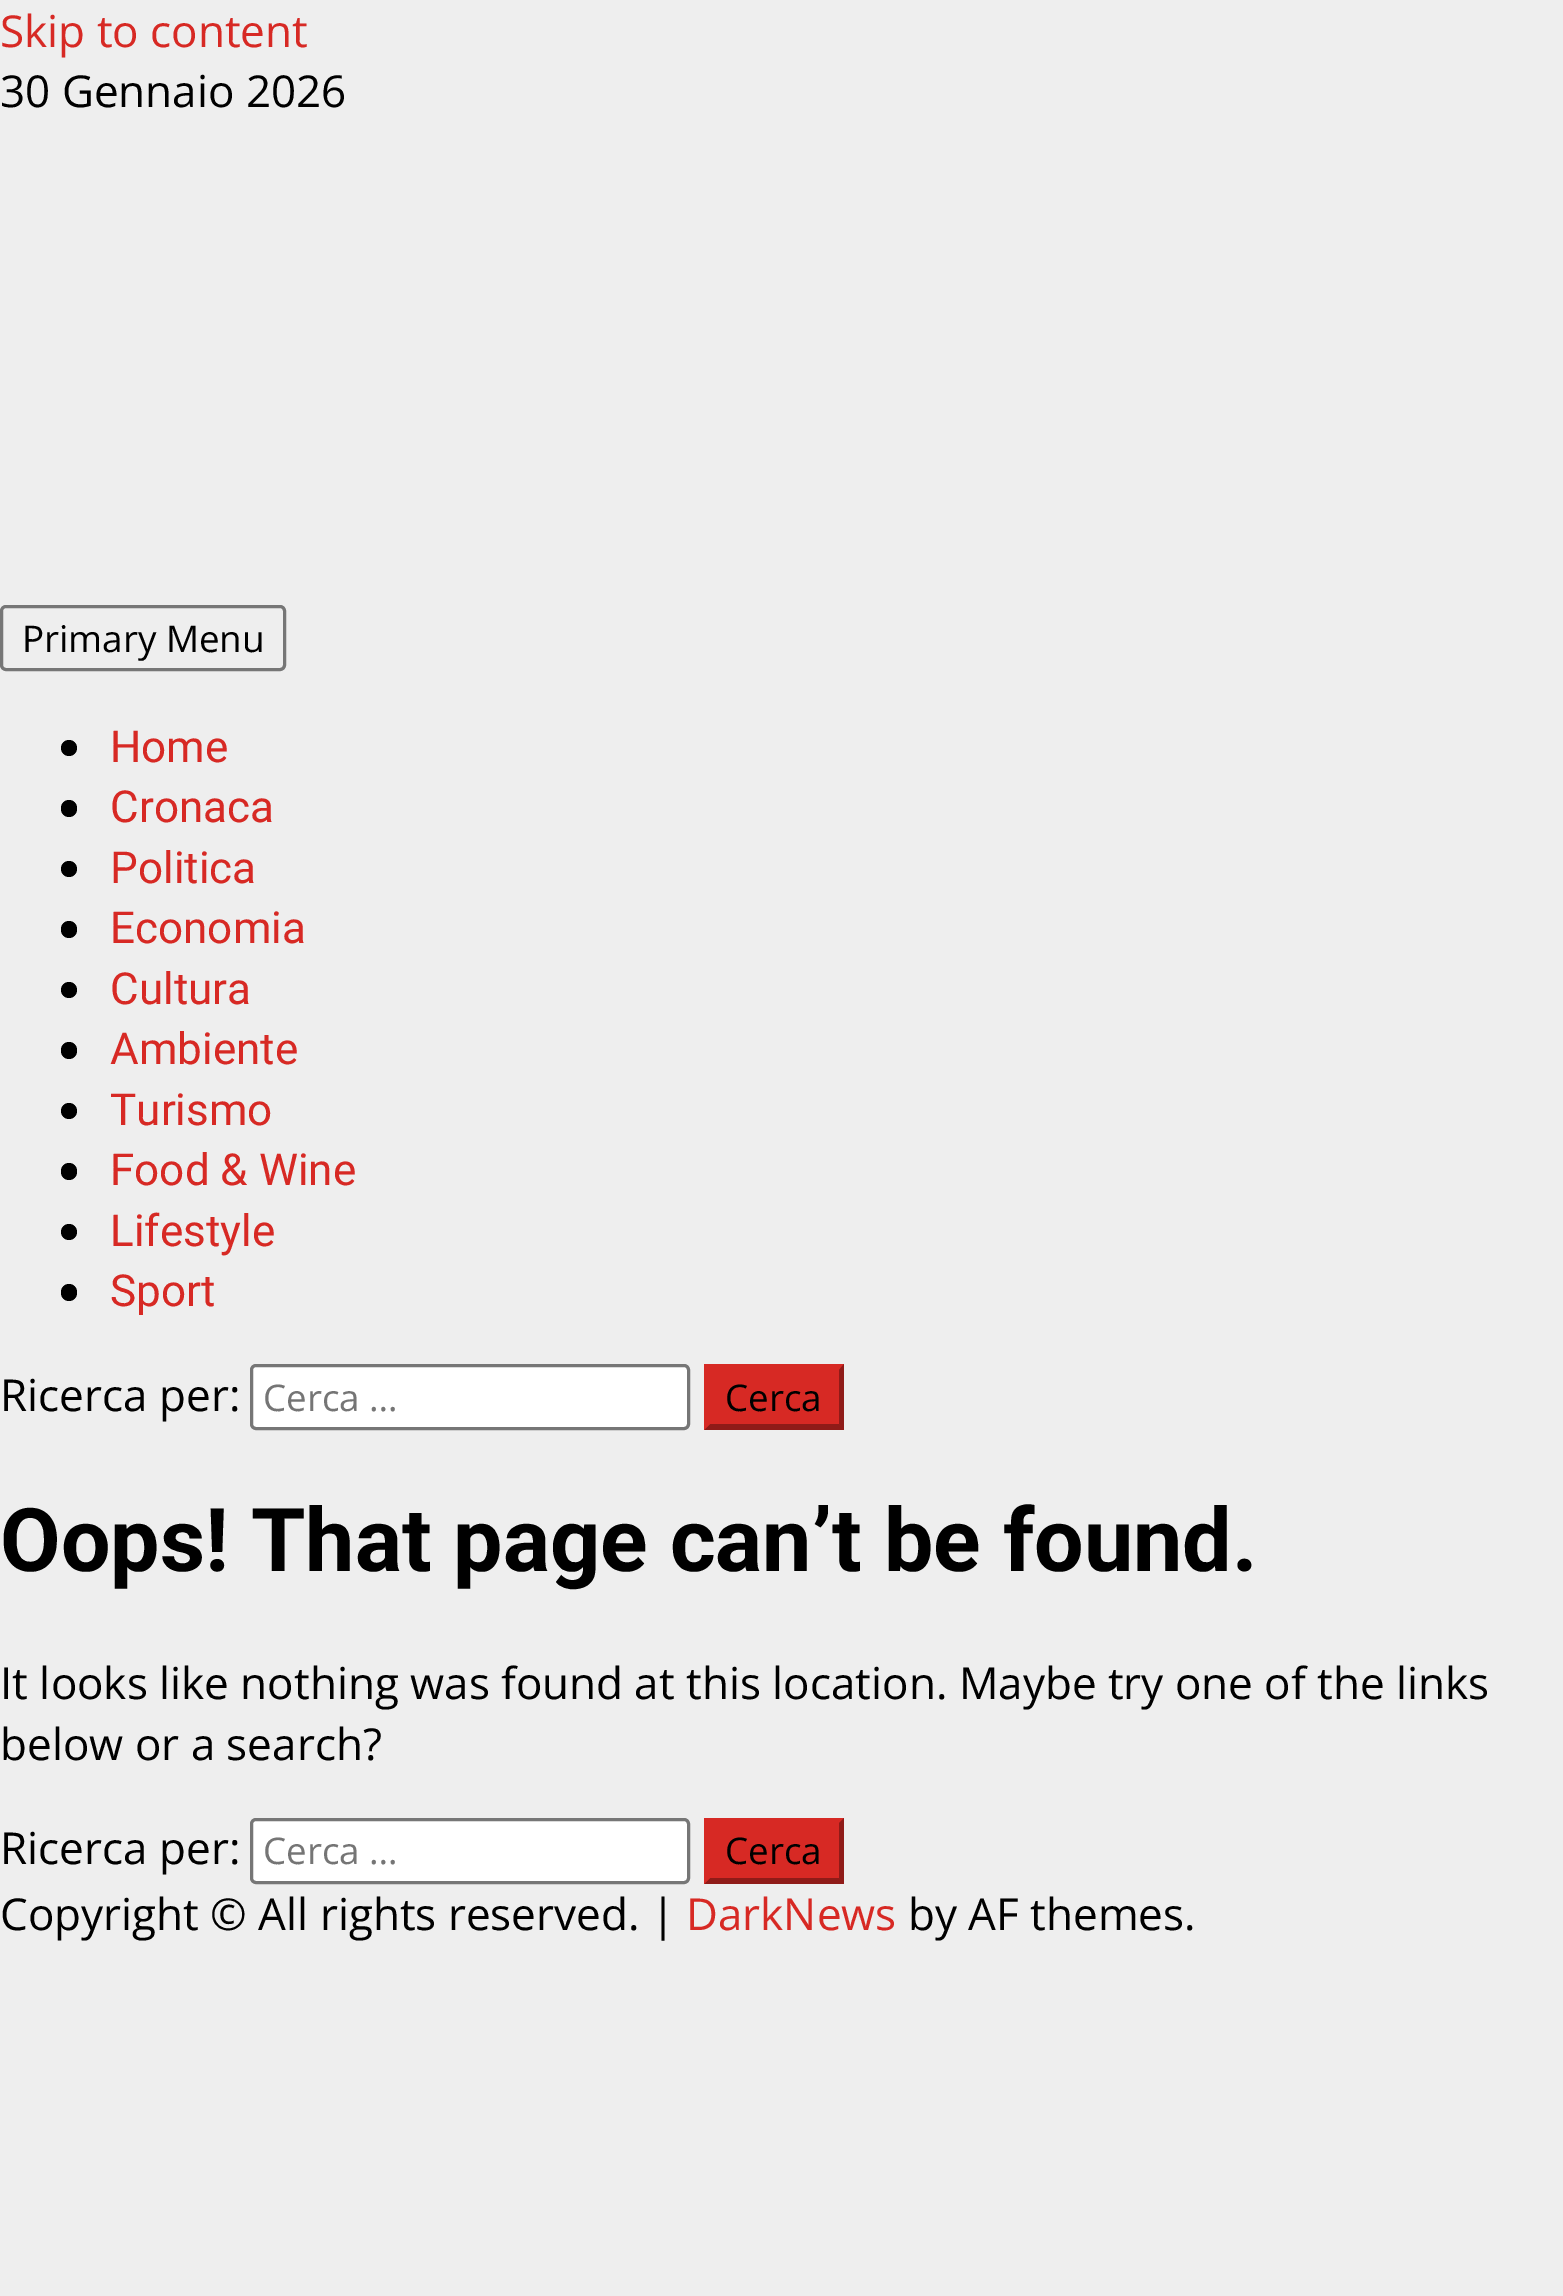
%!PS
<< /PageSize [1563 2296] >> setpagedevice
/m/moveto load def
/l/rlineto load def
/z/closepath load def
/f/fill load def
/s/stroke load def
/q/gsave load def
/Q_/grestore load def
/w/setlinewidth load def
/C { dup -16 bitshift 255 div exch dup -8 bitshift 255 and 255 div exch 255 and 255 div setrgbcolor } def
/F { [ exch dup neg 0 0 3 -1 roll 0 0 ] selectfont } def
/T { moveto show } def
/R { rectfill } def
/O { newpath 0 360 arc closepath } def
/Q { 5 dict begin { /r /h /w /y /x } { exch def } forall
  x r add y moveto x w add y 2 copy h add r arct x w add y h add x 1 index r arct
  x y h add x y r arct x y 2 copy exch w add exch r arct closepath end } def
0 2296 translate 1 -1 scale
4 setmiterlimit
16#EEEEEE C
0 0 1563 2296 R
/OpenSans-Regular 44 F
16#D72924 C
(Skip to content) 0 47 T
16#000000 C
(30 Gennaio 2026) 0 107 T
16#767676 C
3 w
1.5 606.5 283 63 4.5 Q s
/OpenSans-Regular 36.75 F
16#000000 C
(Primary Menu) 22 652 T
69 748 8 O f
/Roboto-Regular 44 F
16#D72924 C
(Home) 110 762 T
16#000000 C
61 800 16 17 8 Q f
16#D72924 C
(Cronaca) 110 822 T
16#000000 C
69 869 8 O f
16#D72924 C
(Politica) 110 883 T
16#000000 C
61 921 16 17 8 Q f
16#D72924 C
(Economia) 110 943 T
16#000000 C
69 990 8 O f
16#D72924 C
(Cultura) 110 1004 T
16#000000 C
61 1042 16 17 8 Q f
16#D72924 C
(Ambiente) 110 1064 T
16#000000 C
69 1111 8 O f
16#D72924 C
(Turismo) 110 1125 T
16#000000 C
61 1163 16 17 8 Q f
16#D72924 C
(Food & Wine) 110 1185 T
16#000000 C
69 1232 8 O f
16#D72924 C
(Lifestyle) 110 1246 T
16#000000 C
61 1284 16 17 8 Q f
16#D72924 C
(Sport) 110 1306 T
/OpenSans-Regular 44 F
16#000000 C
(Ricerca per:) 0 1411 T
16#FFFFFF C
251.5 1365.5 437 63 4.5 Q q f Q_
16#767676 C
s
/OpenSans-Regular 36.75 F
16#757575 C
(Cerca …) 263 1411 T
16#D72924 C
704 1364 140 66 R
16#8F1B18 C
844 1364 m 0 66 l -5 -6 l 0 -54 l z f
844 1430 m -140 0 l 6 -6 l 129 0 l z f
16#D72924 C
704 1430 m 0 -66 l 6 6 l 0 54 l z f
16#000000 C
(Cerca) 725 1411 T
/Roboto-Bold 88 F
(Oops! That page can’t be found.) 0 1571 T
/OpenSans-Regular 44 F
(It looks like nothing was found at this location. Maybe try one of the links) 0 1699 T
(below or a search?) 0 1760 T
(Ricerca per:) 0 1864 T
16#FFFFFF C
251.5 1819.5 437 63 4.5 Q q f Q_
16#767676 C
s
/OpenSans-Regular 36.75 F
16#757575 C
(Cerca …) 263 1864 T
16#D72924 C
704 1818 140 66 R
16#8F1B18 C
844 1818 m 0 66 l -5 -6 l 0 -55 l z f
844 1884 m -140 0 l 6 -6 l 129 0 l z f
16#D72924 C
704 1884 m 0 -66 l 6 5 l 0 55 l z f
16#000000 C
(Cerca) 725 1864 T
/OpenSans-Regular 44 F
(Copyright © All rights reserved. |) 0 1930 T
16#D72924 C
(DarkNews) 686 1930 T
16#000000 C
(by AF themes.) 908 1930 T
showpage
